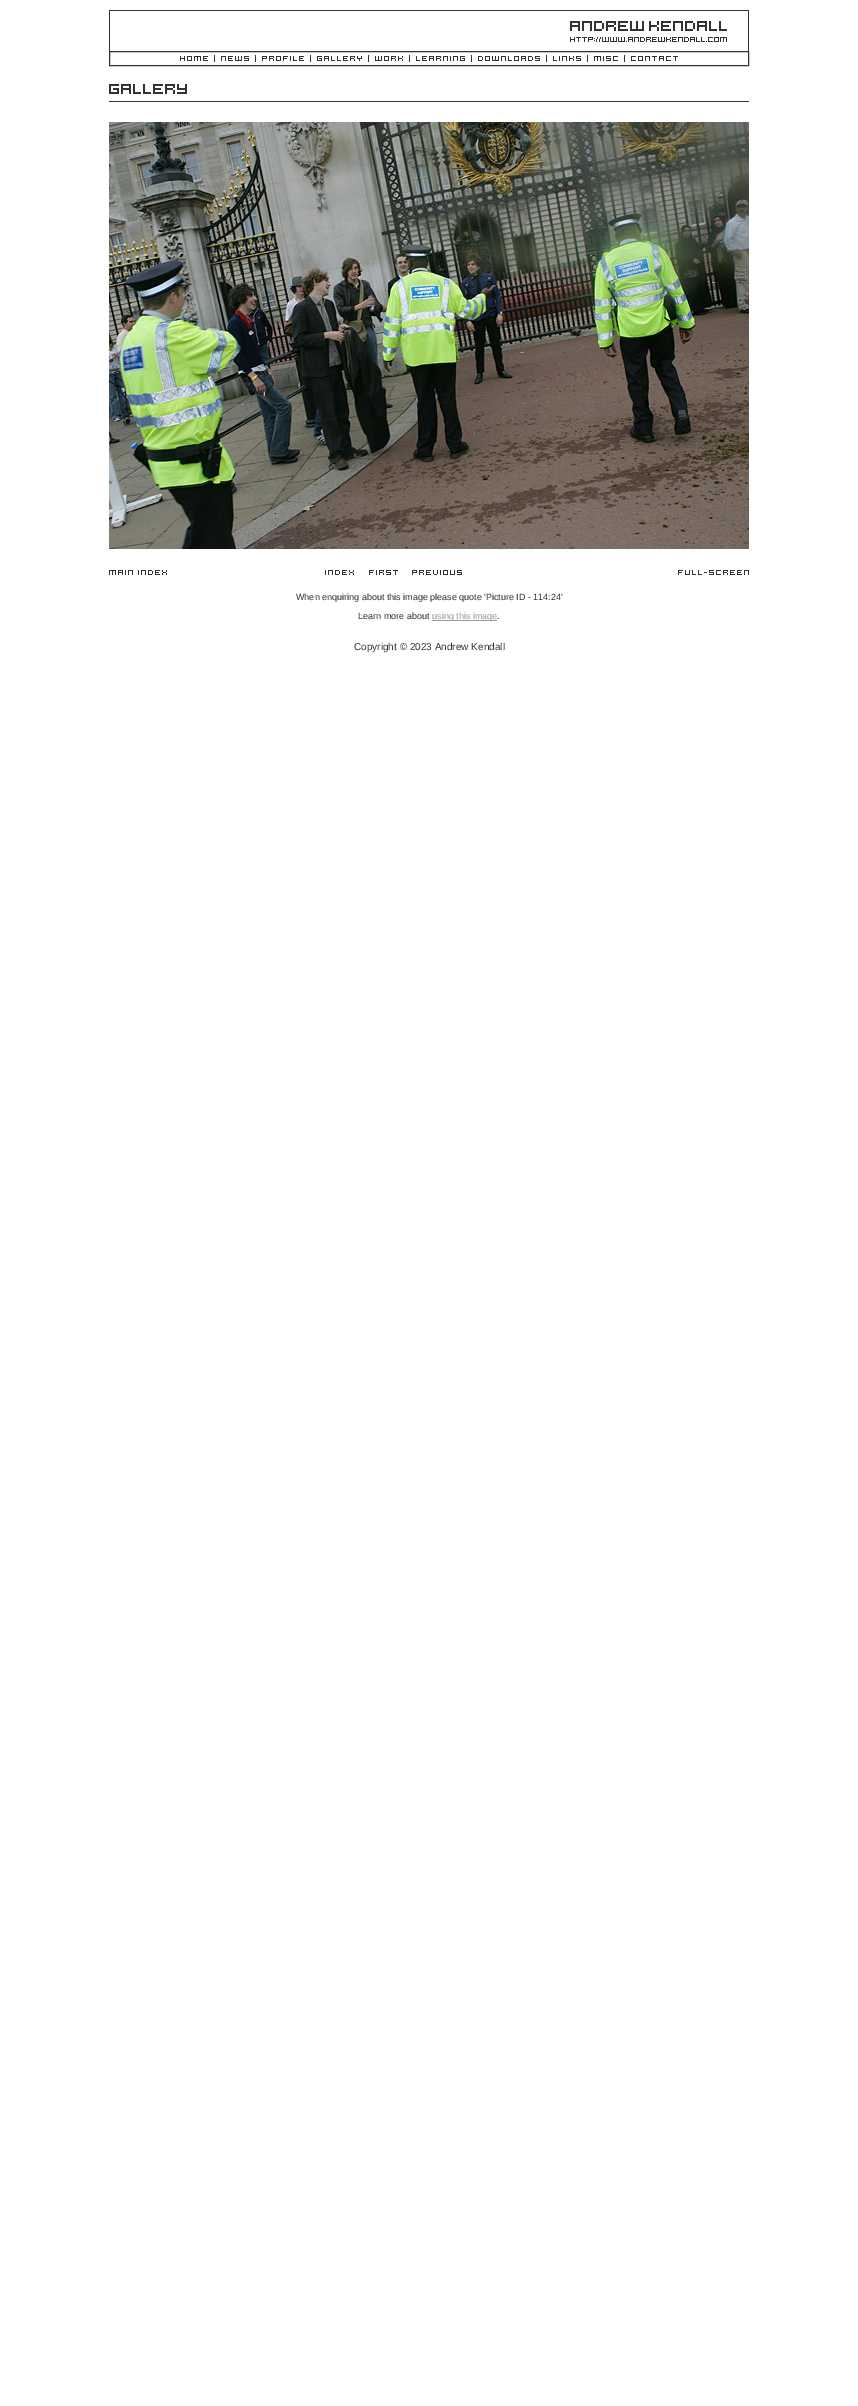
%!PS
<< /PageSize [858 2406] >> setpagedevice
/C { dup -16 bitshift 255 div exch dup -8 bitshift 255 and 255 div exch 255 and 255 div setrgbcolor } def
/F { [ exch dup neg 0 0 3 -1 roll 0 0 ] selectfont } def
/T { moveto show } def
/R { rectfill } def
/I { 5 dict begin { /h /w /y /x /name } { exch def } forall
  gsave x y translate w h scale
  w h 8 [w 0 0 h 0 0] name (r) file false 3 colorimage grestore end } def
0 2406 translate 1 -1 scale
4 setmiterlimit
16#FFFFFF C
0 0 858 2406 R
(1.rgb) 570 21 157 21 I
16#333333 C
109 10 640 1 R
748 10 1 41 R
109 10 1 41 R
109.5 51.5 639 14 rectstroke
(2.rgb) 180 55 498 7 I
109 101 640 1 R
(3.rgb) 109 84 78 10 I
(4.rgb) 109 122 640 427 I
(5.rgb) 109 570 58 5 I
(6.rgb) 325 570 29 5 I
(7.rgb) 369 570 29 5 I
(8.rgb) 412 570 50 5 I
(9.rgb) 678 570 71 5 I
/LiberationSans-Regular 9 F
(When enquiring about this image please quote 'Picture ID - 114:24') 296 600 T
(Learn more about) 358 619 T
16#999999 C
432 620 65 1 R
(using this image) 432 619 T
16#333333 C
(.) 497 619 T
/LiberationSans-Regular 10 F
(Copyright © 2023 Andrew Kendall) 354 650 T
showpage
